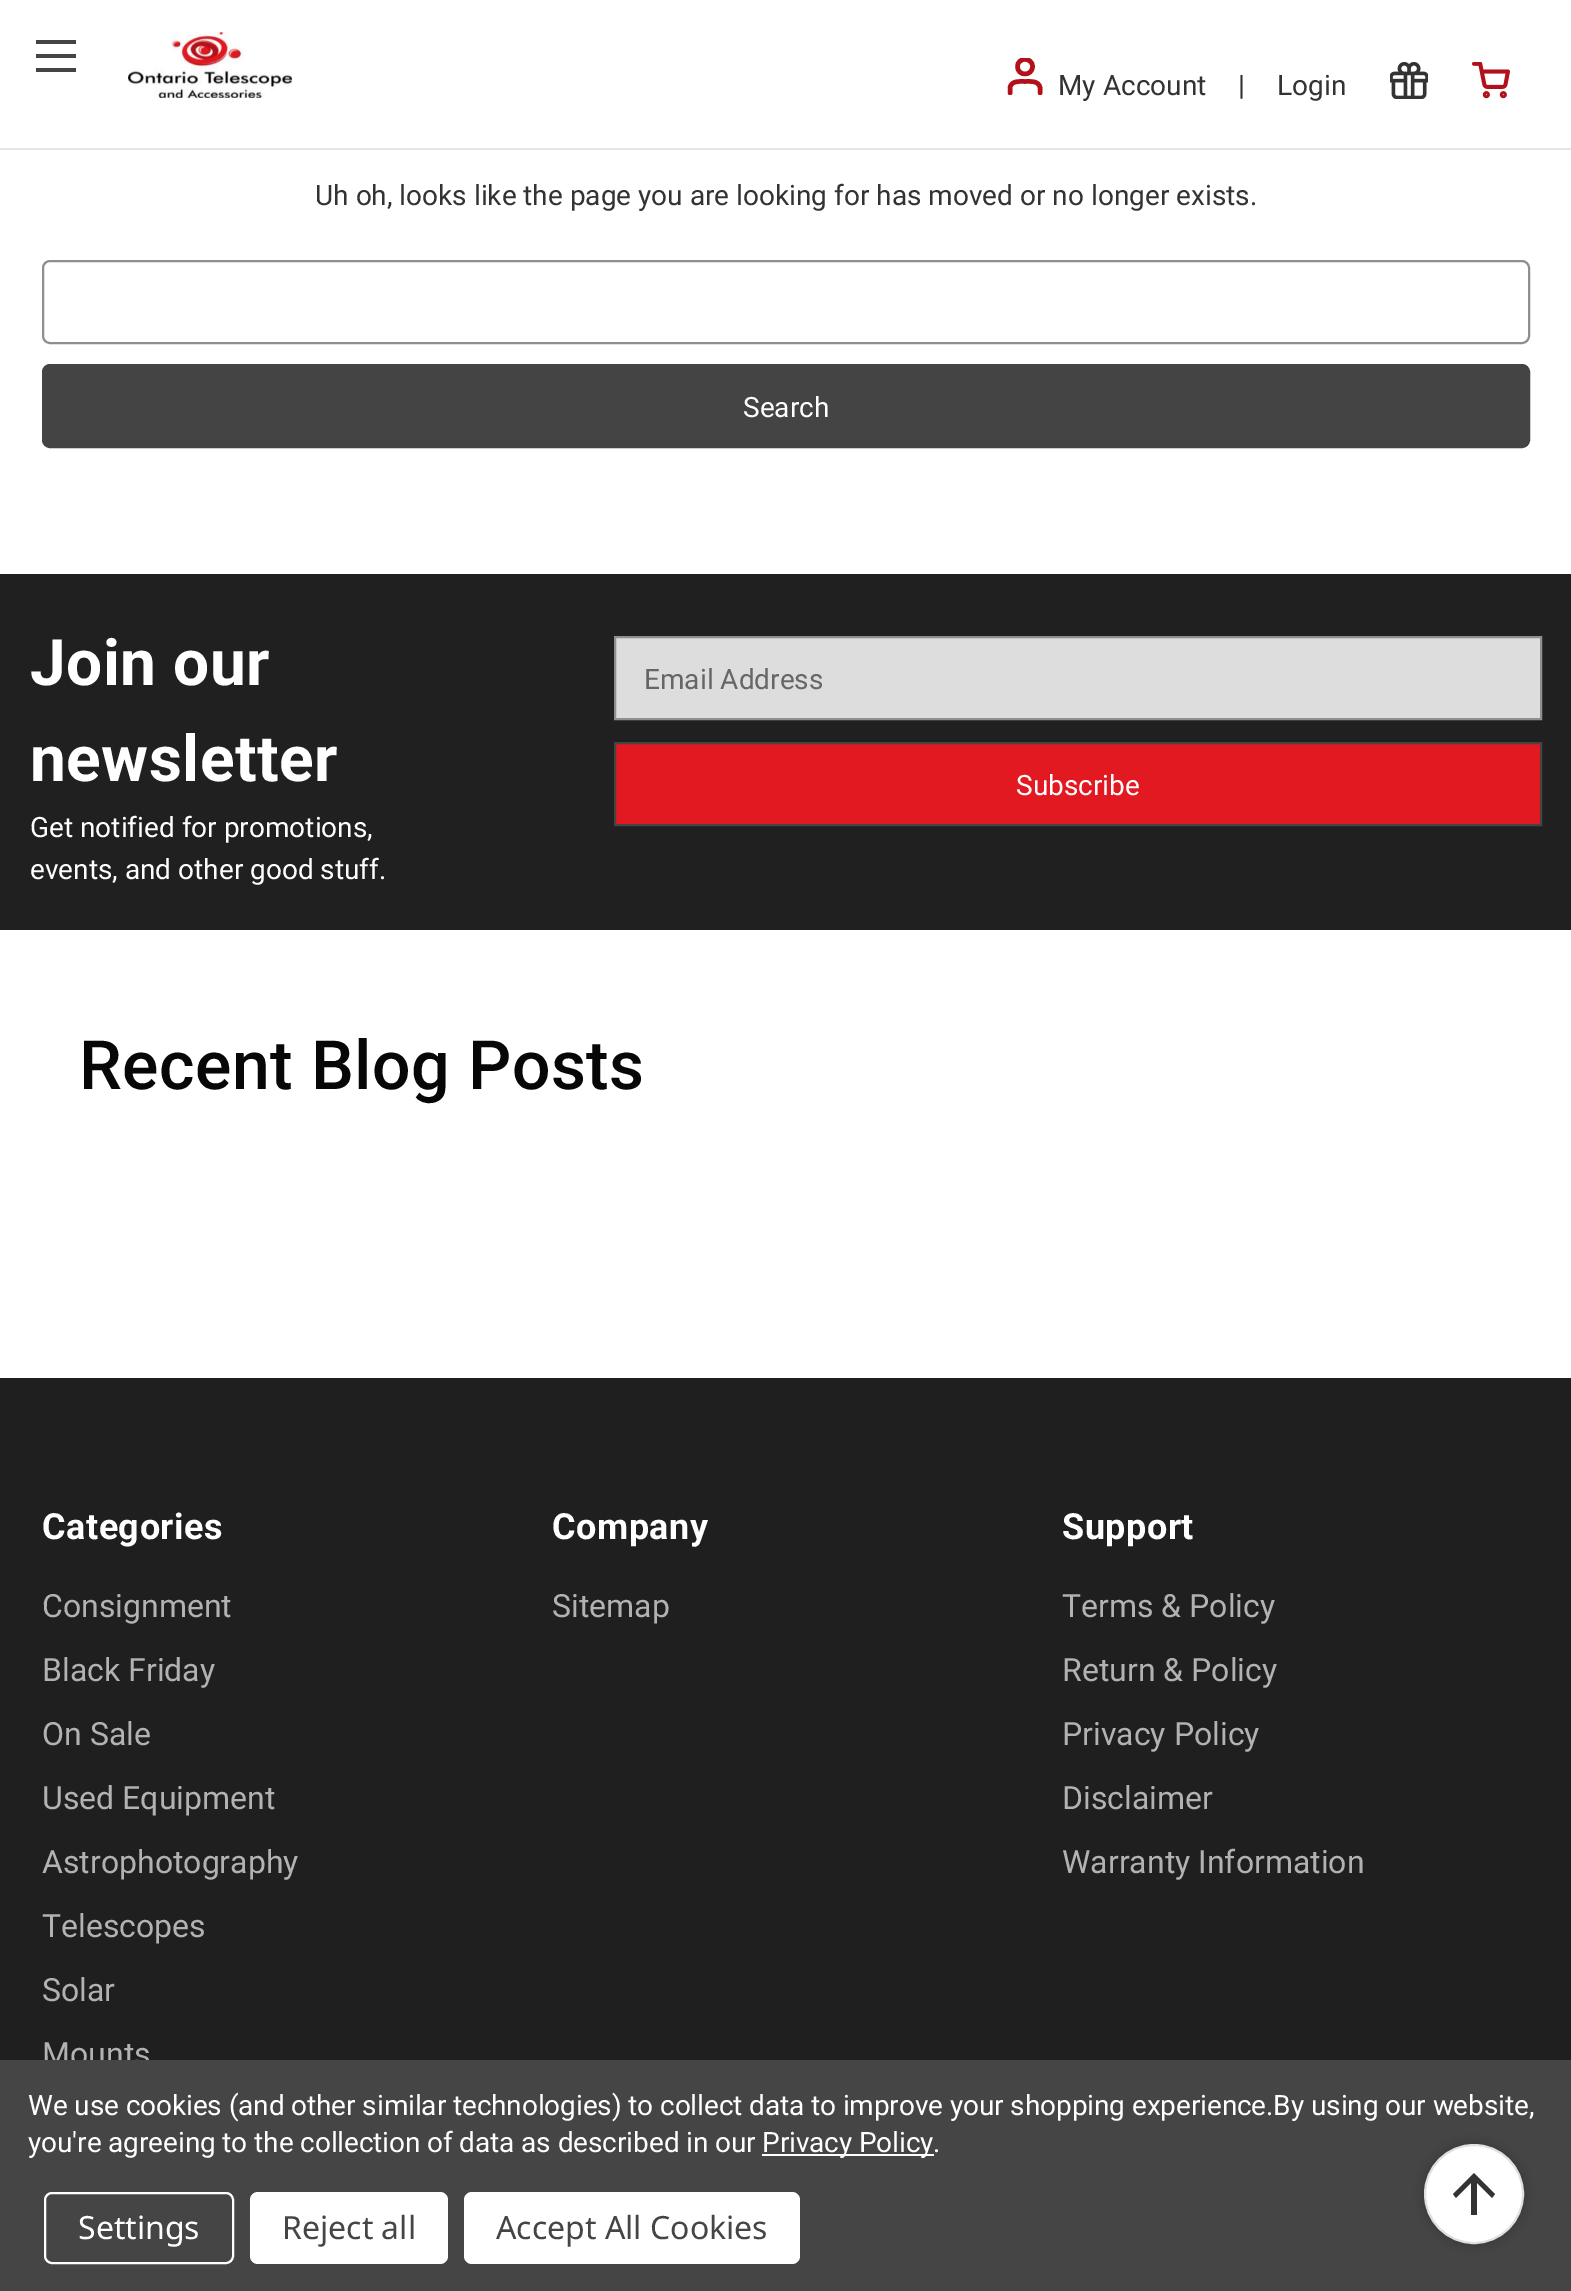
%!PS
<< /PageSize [1571 2291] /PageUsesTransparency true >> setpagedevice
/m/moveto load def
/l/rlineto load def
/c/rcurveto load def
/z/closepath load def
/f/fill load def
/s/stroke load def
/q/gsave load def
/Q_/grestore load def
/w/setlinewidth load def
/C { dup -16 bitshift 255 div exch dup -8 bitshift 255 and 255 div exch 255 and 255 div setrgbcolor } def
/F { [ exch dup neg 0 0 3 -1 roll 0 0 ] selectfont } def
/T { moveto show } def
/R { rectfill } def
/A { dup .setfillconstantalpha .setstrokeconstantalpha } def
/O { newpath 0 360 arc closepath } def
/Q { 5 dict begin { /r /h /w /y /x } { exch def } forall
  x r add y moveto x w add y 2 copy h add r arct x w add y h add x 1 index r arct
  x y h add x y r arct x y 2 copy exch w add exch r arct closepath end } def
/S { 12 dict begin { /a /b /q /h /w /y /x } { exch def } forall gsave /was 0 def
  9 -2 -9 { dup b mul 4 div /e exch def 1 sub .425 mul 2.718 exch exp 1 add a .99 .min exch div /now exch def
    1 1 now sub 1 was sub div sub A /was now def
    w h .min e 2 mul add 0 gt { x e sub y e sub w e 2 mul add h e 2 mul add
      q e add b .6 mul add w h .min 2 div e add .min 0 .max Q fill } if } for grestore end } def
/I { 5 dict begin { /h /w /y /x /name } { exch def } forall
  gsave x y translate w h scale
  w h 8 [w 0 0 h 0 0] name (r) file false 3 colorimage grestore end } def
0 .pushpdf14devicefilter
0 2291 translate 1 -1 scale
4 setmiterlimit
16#FFFFFF C
0 0 1571 2291 R
16#E5E5E5 C
0 148 1571 2 R
16#444444 C
36 54 40 4 R
36 40 40 4 R
36 68 40 4 R
(1.rgb) 128 32 165 66 I
q
1006 58 38 37 rectclip
16#B31119 C
4.5 w
1 setlinecap
1 setlinejoin
1040 93 m 0 -5.5 l -1.5 -7 -9.5 -6 -15 -6 c -5.5 0 -13.5 -1 -15 6 c 0 5.5 l 1032.5 66.5 m 0 10 -15 10 -15 0 c 0 -9.5 15 -9.5 15 0 c z s
Q_
/Roboto-Regular 28 F
16#333333 C
(My Account) 1058 95 T
16#2F2F2B C
(|) 1238 95 T
16#333333 C
(Login) 1277 95 T
(2.rgb) 1390 62 38 37 I
(3.rgb) 1472 62 38 37 I
(Uh oh, looks like the page you are looking for has moved or no longer exists.) 315 205 T
16#8F8F8F C
2 w
43 261 1486 82 7 Q s
16#444444 C
43 365 1486 82 7 Q q f Q_
s
16#FFFFFF C
(Search) 743 417 T
16#202020 C
0 574 1571 356 R
/Roboto-Bold 64 F
16#FFFFFF C
30 685 m .5 0 (Join our) ashow
30 781 m .5 0 (newsletter) ashow
/Roboto-Regular 28 F
(Get notified for promotions,) 30 837 T
(events, and other good stuff.) 30 879 T
16#DDDDDD C
615 637 m 926 0 l 0 82 l -926 0 l z q f Q_
16#8F8F8F C
s
16#666666 C
(Email Address) 644 689 T
16#E31921 C
615 743 m 926 0 l 0 82 l -926 0 l z q f Q_
16#444444 C
s
16#FFFFFF C
(Subscribe) 1016 795 T
/Roboto-Medium 68 F
16#070707 C
79 1089 m .5 0 (Recent Blog Posts) ashow
16#1F1F1F C
0 1378 1571 682 R
/Roboto-Bold 36 F
16#FFFFFF C
42 1539 m .5 0 (Categories) ashow
/Roboto-Regular 32 F
16#B2B2B2 C
(Consignment) 42 1617 T
(Black Friday) 42 1681 T
(On Sale) 42 1745 T
(Used Equipment) 42 1809 T
(Astrophotography) 42 1873 T
(Telescopes) 42 1937 T
(Solar) 42 2001 T
(Mounts) 42 2065 T
/Roboto-Bold 36 F
16#FFFFFF C
552 1539 m .5 0 (Company) ashow
/Roboto-Regular 32 F
16#B2B2B2 C
(Sitemap) 552 1617 T
/Roboto-Bold 36 F
16#FFFFFF C
1062 1539 m .5 0 (Support) ashow
/Roboto-Regular 32 F
16#B2B2B2 C
(Terms & Policy) 1062 1617 T
(Return & Policy) 1062 1681 T
(Privacy Policy) 1062 1745 T
(Disclaimer) 1062 1809 T
(Warranty Information) 1062 1873 T
16#454545 C
0 2060 1571 231 R
/Roboto-Regular 28 F
16#FFFFFF C
28 2115 m -.1 0 (We use cookies \(and other similar technologies\) to collect data to improve your shopping experience.By using our website,) ashow
28 2152 m -.1 0 (you're agreeing to the collection of data as described in our) ashow
762 2154 172 2 R
762 2152 m -.1 0 (Privacy Policy.) ashow
45 2193 188 70 7 Q s
/NotoSans-Regular 32 F
(Settings) 78 2239 T
250 2192 198 72 8 Q f
16#454545 C
(Reject all) 282 2239 T
16#FFFFFF C
464 2192 336 72 8 Q f
16#454545 C
(Accept All Cookies) 496 2239 T
16#000000 C
1424 2144 100 100 50 5 .2 S
16#FFFFFF C
1474 2194 49 O q f Q_
16#E0E0E0 C
s
16#333333 C
1471 2215 m 0 -32 l -15 15 l -3 -4 l 21 -21 l 21 21 l -3 4 l -15 -15 l 0 32 l z f
.poppdf14devicefilter showpage
